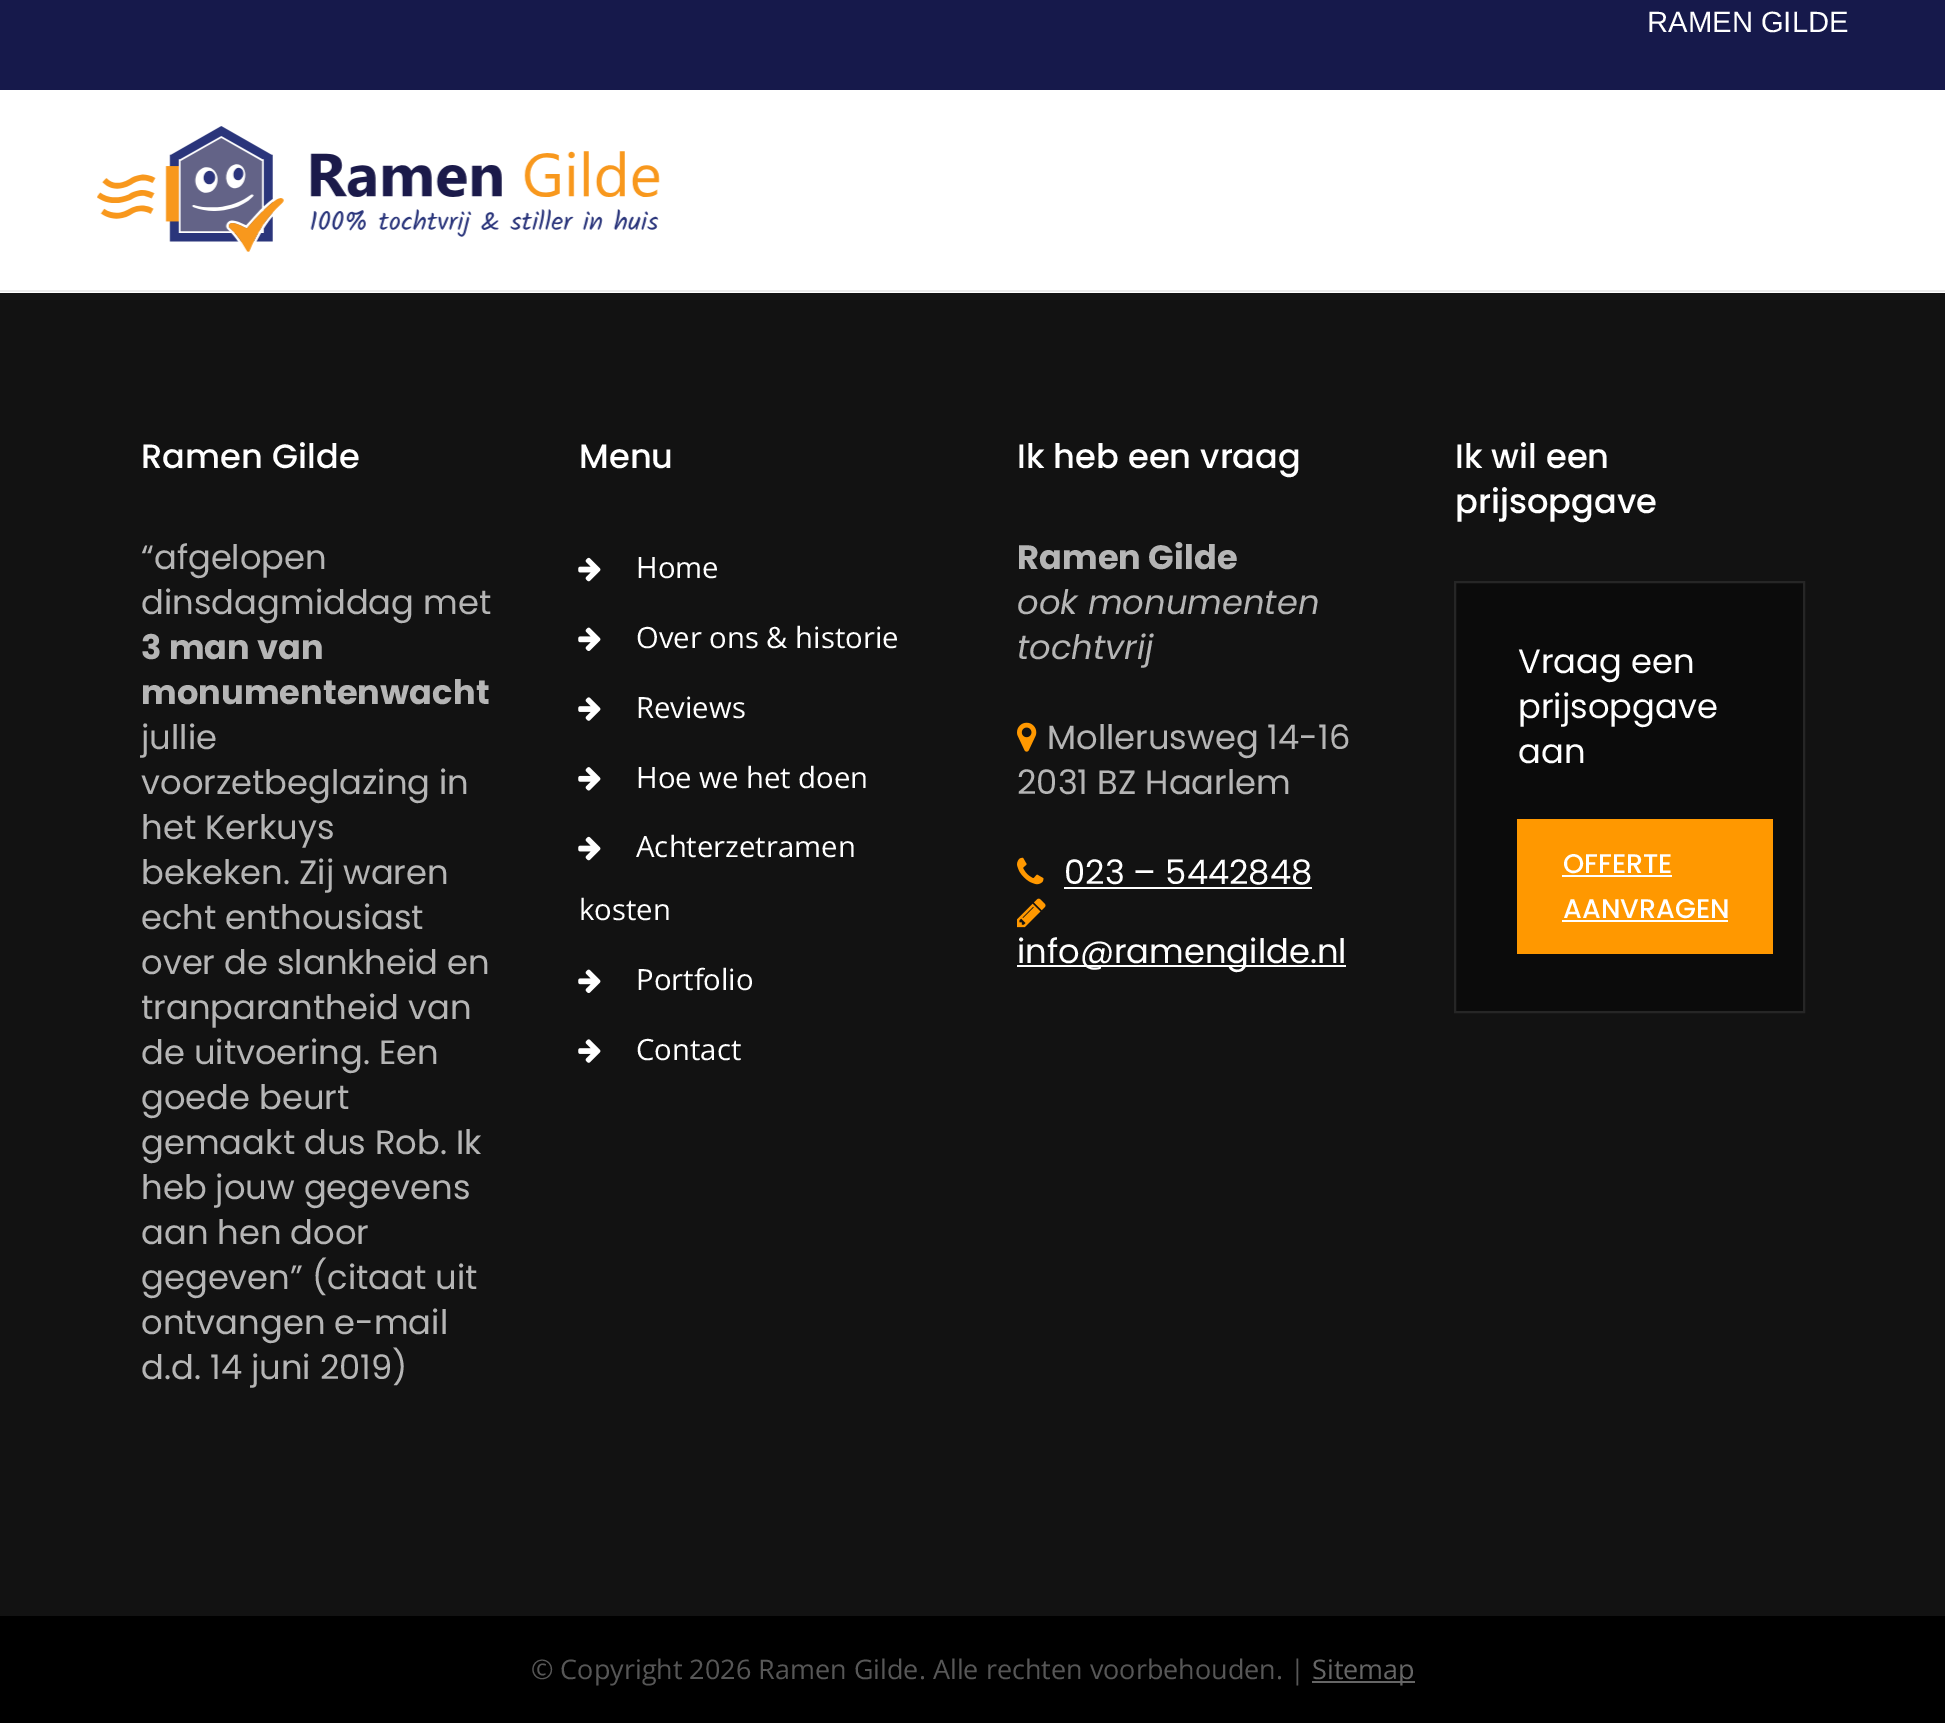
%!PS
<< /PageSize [1945 1723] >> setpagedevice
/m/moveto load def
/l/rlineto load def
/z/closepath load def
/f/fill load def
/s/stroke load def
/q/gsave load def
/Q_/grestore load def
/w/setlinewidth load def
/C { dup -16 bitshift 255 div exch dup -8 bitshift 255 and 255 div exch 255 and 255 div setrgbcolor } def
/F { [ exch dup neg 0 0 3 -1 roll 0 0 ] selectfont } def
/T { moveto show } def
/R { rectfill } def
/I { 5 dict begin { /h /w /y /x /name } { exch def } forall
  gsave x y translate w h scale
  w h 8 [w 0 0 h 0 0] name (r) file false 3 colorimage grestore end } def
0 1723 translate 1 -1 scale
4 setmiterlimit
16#121212 C
0 0 1945 1723 R
16#FFFFFF C
0 90 1945 203 R
16#EAEAEA C
0 290 1945 2 R
16#16194B C
0 0 1945 90 R
/LiberationSans-Regular 29.25 F
16#FFFFFF C
(RAMEN GILDE) 1647 32 T
(1.rgb) 97 126 563 126 I
/Poppins-Medium 33.75 F
(Ramen Gilde) 141 468 T
/Poppins-Regular 33.75 F
16#B5B5B5 C
(“afgelopen) 141 569 T
(dinsdagmiddag met) 141 614 T
/Poppins-Bold 33.75 F
(3 man van) 141 659 T
(monumentenwacht) 141 704 T
/Poppins-Regular 33.75 F
(jullie) 141 749 T
(voorzetbeglazing in) 141 794 T
(het Kerkuys) 141 839 T
(bekeken. Zij waren) 141 884 T
(echt enthousiast) 141 929 T
(over de slankheid en) 141 974 T
(tranparantheid van) 141 1019 T
(de uitvoering. Een) 141 1064 T
(goede beurt) 141 1109 T
(gemaakt dus Rob. Ik) 141 1154 T
(heb jouw gegevens) 141 1199 T
(aan hen door) 141 1244 T
(gegeven” \(citaat uit) 141 1289 T
(ontvangen e-mail) 141 1334 T
(d.d. 14 juni 2019\)) 141 1379 T
/Poppins-Medium 33.75 F
16#FFFFFF C
(Menu) 579 468 T
(2.rgb) 578 557 23 25 I
/OpenSans-Regular 29.25 F
(Home) 636 578 T
(3.rgb) 578 627 23 24 I
(Over ons & historie) 636 648 T
(4.rgb) 578 697 23 24 I
(Reviews) 636 718 T
(5.rgb) 578 767 23 24 I
(Hoe we het doen) 636 788 T
(2.rgb) 578 836 23 25 I
(Achterzetramen) 636 857 T
(kosten) 579 920 T
(3.rgb) 578 969 23 24 I
(Portfolio) 636 990 T
(4.rgb) 578 1039 23 24 I
(Contact) 636 1060 T
/Poppins-Medium 33.75 F
(Ik heb een vraag) 1017 468 T
/Poppins-Bold 33.75 F
16#B5B5B5 C
(Ramen Gilde) 1017 569 T
/Poppins-Italic 33.75 F
(ook monumenten) 1017 614 T
(tochtvrij) 1017 659 T
(6.rgb) 1017 722 20 30 I
/Poppins-Regular 33.75 F
(Mollerusweg 14-16) 1047 749 T
(2031 BZ Haarlem) 1017 794 T
(7.rgb) 1017 857 27 28 I
16#FFFFFF C
(023 – 5442848) 1064 884 T
1064 887 248 2 R
(8.rgb) 1017 898 29 30 I
1017 965 329 2 R
(info@ramengilde.nl) 1017 963 T
/Poppins-Medium 33.75 F
(Ik wil een) 1455 468 T
(prijsopgave) 1455 513 T
16#0B0B0B C
1455 582 m 349 0 l 0 430 l -349 0 l z q f Q_
16#262626 C
2 w
s
/Poppins-Regular 33.75 F
16#FFFFFF C
(Vraag een) 1518 673 T
(prijsopgave) 1518 718 T
(aan) 1518 763 T
16#FF9800 C
1517 819 256 135 R
/Poppins-Medium 27 F
16#FFFFFF C
(OFFERTE) 1563 873 T
1562 875 110 2 R
(AANVRAGEN) 1563 918 T
1562 920 166 2 R
16#000000 C
0 1616 1945 107 R
/OpenSans-Regular 27 F
16#575757 C
(© Copyright 2026 Ramen Gilde. Alle rechten voorbehouden. |) 531 1679 T
16#666666 C
1312 1681 103 2 R
(Sitemap) 1312 1679 T
showpage
